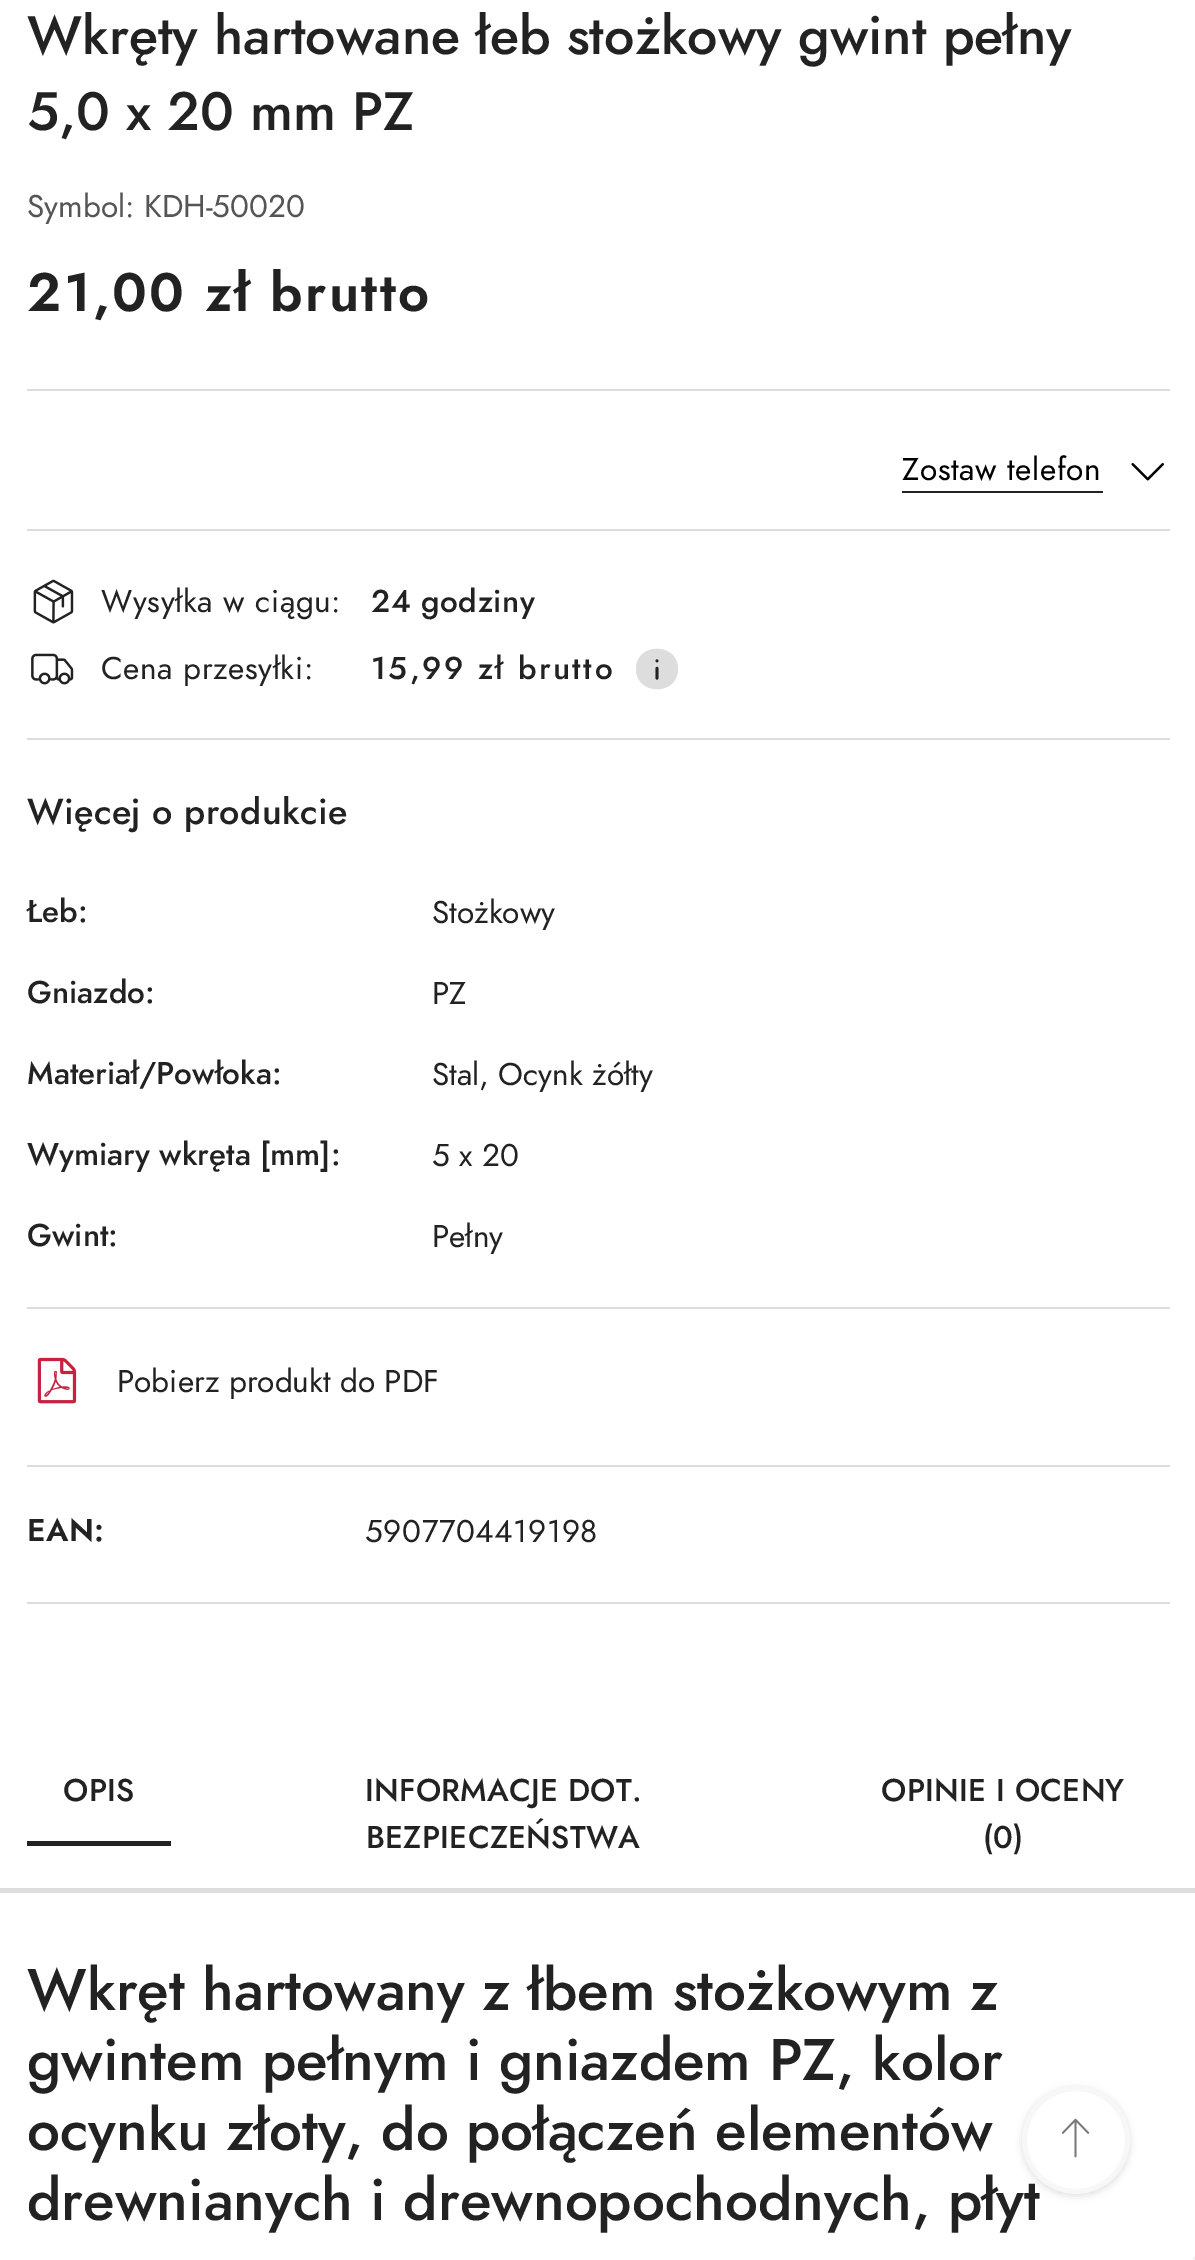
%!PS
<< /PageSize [1195 2260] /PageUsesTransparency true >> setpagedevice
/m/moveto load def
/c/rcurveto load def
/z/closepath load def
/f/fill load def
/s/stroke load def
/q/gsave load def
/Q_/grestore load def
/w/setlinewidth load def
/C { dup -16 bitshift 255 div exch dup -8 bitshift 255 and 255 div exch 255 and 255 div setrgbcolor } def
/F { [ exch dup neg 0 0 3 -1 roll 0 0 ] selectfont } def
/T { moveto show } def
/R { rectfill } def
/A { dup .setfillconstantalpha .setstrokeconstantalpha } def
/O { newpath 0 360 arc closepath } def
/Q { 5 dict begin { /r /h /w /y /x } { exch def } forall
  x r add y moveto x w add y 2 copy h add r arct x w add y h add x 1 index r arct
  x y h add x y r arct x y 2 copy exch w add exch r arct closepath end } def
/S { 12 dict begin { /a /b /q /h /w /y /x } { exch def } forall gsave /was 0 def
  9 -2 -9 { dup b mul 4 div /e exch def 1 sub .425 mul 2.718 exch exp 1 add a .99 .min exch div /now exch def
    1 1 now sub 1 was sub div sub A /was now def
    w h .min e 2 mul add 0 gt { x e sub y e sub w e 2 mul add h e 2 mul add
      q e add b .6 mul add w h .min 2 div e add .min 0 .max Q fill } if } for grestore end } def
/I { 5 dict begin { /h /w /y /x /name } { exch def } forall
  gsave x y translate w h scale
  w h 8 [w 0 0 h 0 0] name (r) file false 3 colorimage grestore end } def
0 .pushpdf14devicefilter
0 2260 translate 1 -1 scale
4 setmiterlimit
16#FFFFFF C
0 0 1195 2260 R
/Jost-Medium 54 F
16#222222 C
(Wkręty hartowane łeb stożkowy gwint pełny) 27 54 T
(5,0 x 20 mm PZ) 27 130 T
/Jost-Regular 31.5 F
16#555555 C
(Symbol: KDH-50020) 27 217 T
/Jost-SemiBold 54 F
16#222222 C
27 311 m 2.5 0 (21,00 zł brutto) ashow
16#DDDDDD C
27 389 1143 2 R
/Jost-Regular 31.5 F
16#000000 C
902 480 m .6 0 (Zostaw telefon) ashow
16#222222 C
902 491 201 2 R
(1.rgb) 1131 463 33 18 I
16#DDDDDD C
27 529 1143 2 R
27 738 1143 2 R
(2.rgb) 33 579 41 45 I
16#222222 C
101 612 m .6 0 (Wysyłka w ciągu:) ashow
/Jost-Medium 31.5 F
371 612 m .6 0 (24 godziny) ashow
(3.rgb) 31 653 43 32 I
/Jost-Regular 31.5 F
101 679 m .6 0 (Cena przesyłki:) ashow
/Jost-Medium 31.5 F
371 679 m 2.5 0 (15,99 zł brutto) ashow
16#DDDDDD C
678 669 m 0 27 -42 27 -42 0 c 0 -27 42 -27 42 0 c z f
(4.rgb) 655 659 4 21 I
27 1307 1143 2 R
/Jost-Medium 36 F
16#222222 C
27 824 m .4 0 (Więcej o produkcie) ashow
/Jost-Medium 31.5 F
(Łeb:) 27 922 T
/Jost-Regular 31.5 F
(Stożkowy) 432 923 T
/Jost-Medium 31.5 F
(Gniazdo:) 27 1003 T
/Jost-Regular 31.5 F
(PZ) 432 1004 T
/Jost-Medium 31.5 F
(Materiał/Powłoka:) 27 1084 T
/Jost-Regular 31.5 F
(Stal, Ocynk żółty) 432 1085 T
/Jost-Medium 31.5 F
(Wymiary wkręta [mm]:) 27 1165 T
/Jost-Regular 31.5 F
(5 x 20) 432 1166 T
/Jost-Medium 31.5 F
(Gwint:) 27 1246 T
/Jost-Regular 31.5 F
(Pełny) 432 1247 T
16#DDDDDD C
27 1465 1143 2 R
(5.rgb) 37 1357 40 47 I
16#222222 C
(Pobierz produkt do PDF) 117 1392 T
16#DDDDDD C
27 1602 1143 2 R
/Jost-SemiBold 31.5 F
16#222222 C
27 1541 m .6 0 (EAN:) ashow
/Jost-Regular 31.5 F
365 1542 m .6 0 (5907704419198) ashow
27 1841 144 5 R
/Jost-Medium 31.5 F
63 1801 m .3 0 (OPIS) ashow
365 1801 m .3 0 (INFORMACJE DOT.) ashow
366 1848 m .3 0 (BEZPIECZEŃSTWA) ashow
881 1801 m .3 0 (OPINIE I OCENY) ashow
983 1848 m .3 0 (\(0\)) ashow
16#DDDDDD C
0 1888 1195 5 R
/Jost-Medium 58.5 F
16#222222 C
(Wkręt hartowany z łbem stożkowym z) 27 2010 T
(gwintem pełnym i gniazdem PZ, kolor) 27 2080 T
(ocynku złoty, do połączeń elementów) 27 2150 T
(drewnianych i drewnopochodnych, płyt) 27 2220 T
16#000000 C
1022 2088 108 108 54 3.5 .12 S
16#FFFFFF C
1076 2140 51.5 O q f Q_
16#F7F7F7 C
5 w
s
(6.rgb) 1061 2118 29 40 I
16#F5F5F5 C
1193 2257 2 3 R
.poppdf14devicefilter showpage
